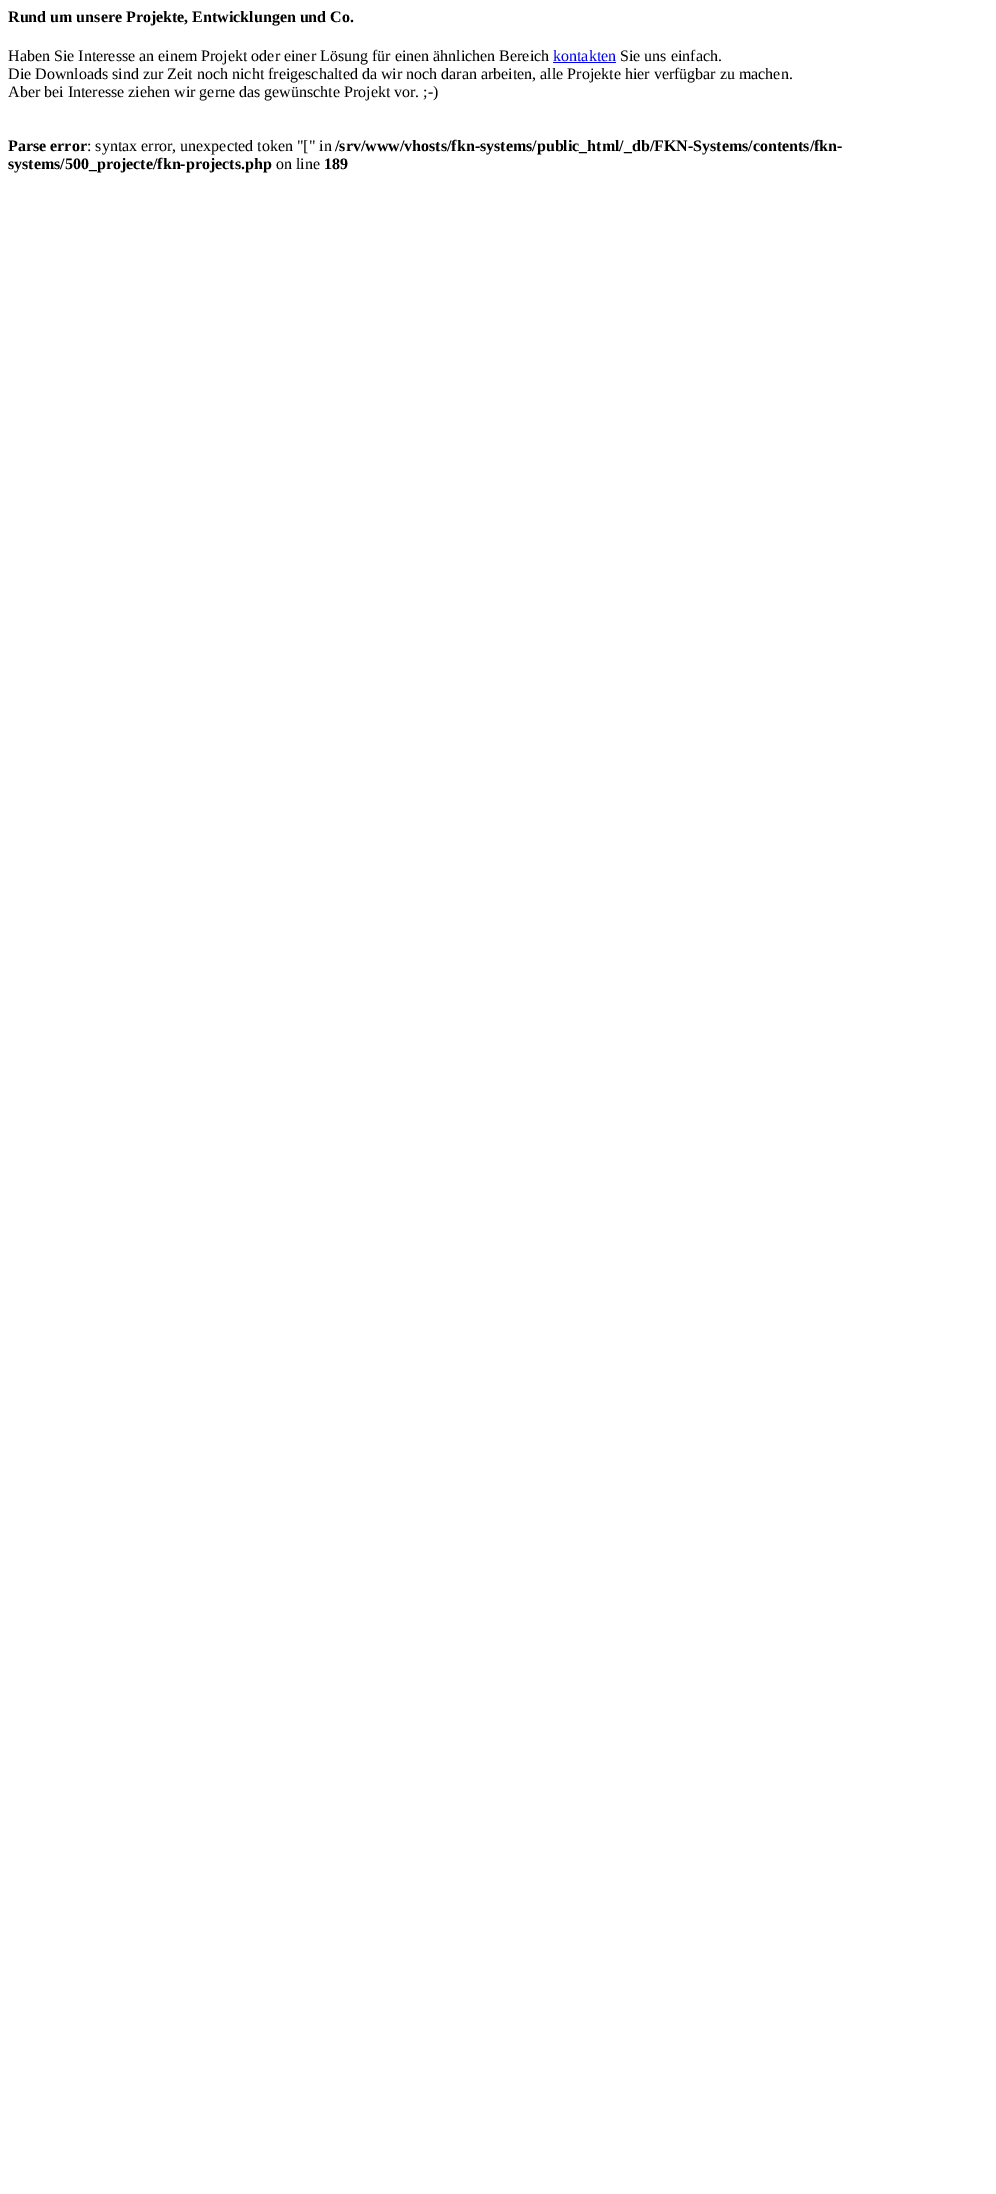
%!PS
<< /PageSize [996 2194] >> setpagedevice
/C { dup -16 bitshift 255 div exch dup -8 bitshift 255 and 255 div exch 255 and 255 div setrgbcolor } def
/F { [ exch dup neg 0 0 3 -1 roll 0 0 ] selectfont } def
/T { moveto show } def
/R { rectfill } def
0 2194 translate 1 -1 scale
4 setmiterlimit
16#FFFFFF C
0 0 996 2194 R
/LiberationSerif-Bold 16 F
16#000000 C
(Rund um unsere Projekte, Entwicklungen und Co.) 8 22 T
/LiberationSerif-Regular 16 F
(Haben Sie Interesse an einem Projekt oder einer Lösung für einen ähnlichen Bereich) 8 61 T
16#0000EE C
(kontakten) 553 61 T
553 62 63 1 R
16#000000 C
(Sie uns einfach.) 620 61 T
(Die Downloads sind zur Zeit noch nicht freigeschalted da wir noch daran arbeiten, alle Projekte hier verfügbar zu machen.) 8 79 T
(Aber bei Interesse ziehen wir gerne das gewünschte Projekt vor. ;-\)) 8 97 T
/LiberationSerif-Bold 16 F
(Parse error) 8 151 T
/LiberationSerif-Regular 16 F
(: syntax error, unexpected token "[" in) 87 151 T
/LiberationSerif-Bold 16 F
(/srv/www/vhosts/fkn-systems/public_html/_db/FKN-Systems/contents/fkn-) 335 151 T
(systems/500_projecte/fkn-projects.php) 8 169 T
/LiberationSerif-Regular 16 F
(on line) 276 169 T
/LiberationSerif-Bold 16 F
(189) 324 169 T
showpage
